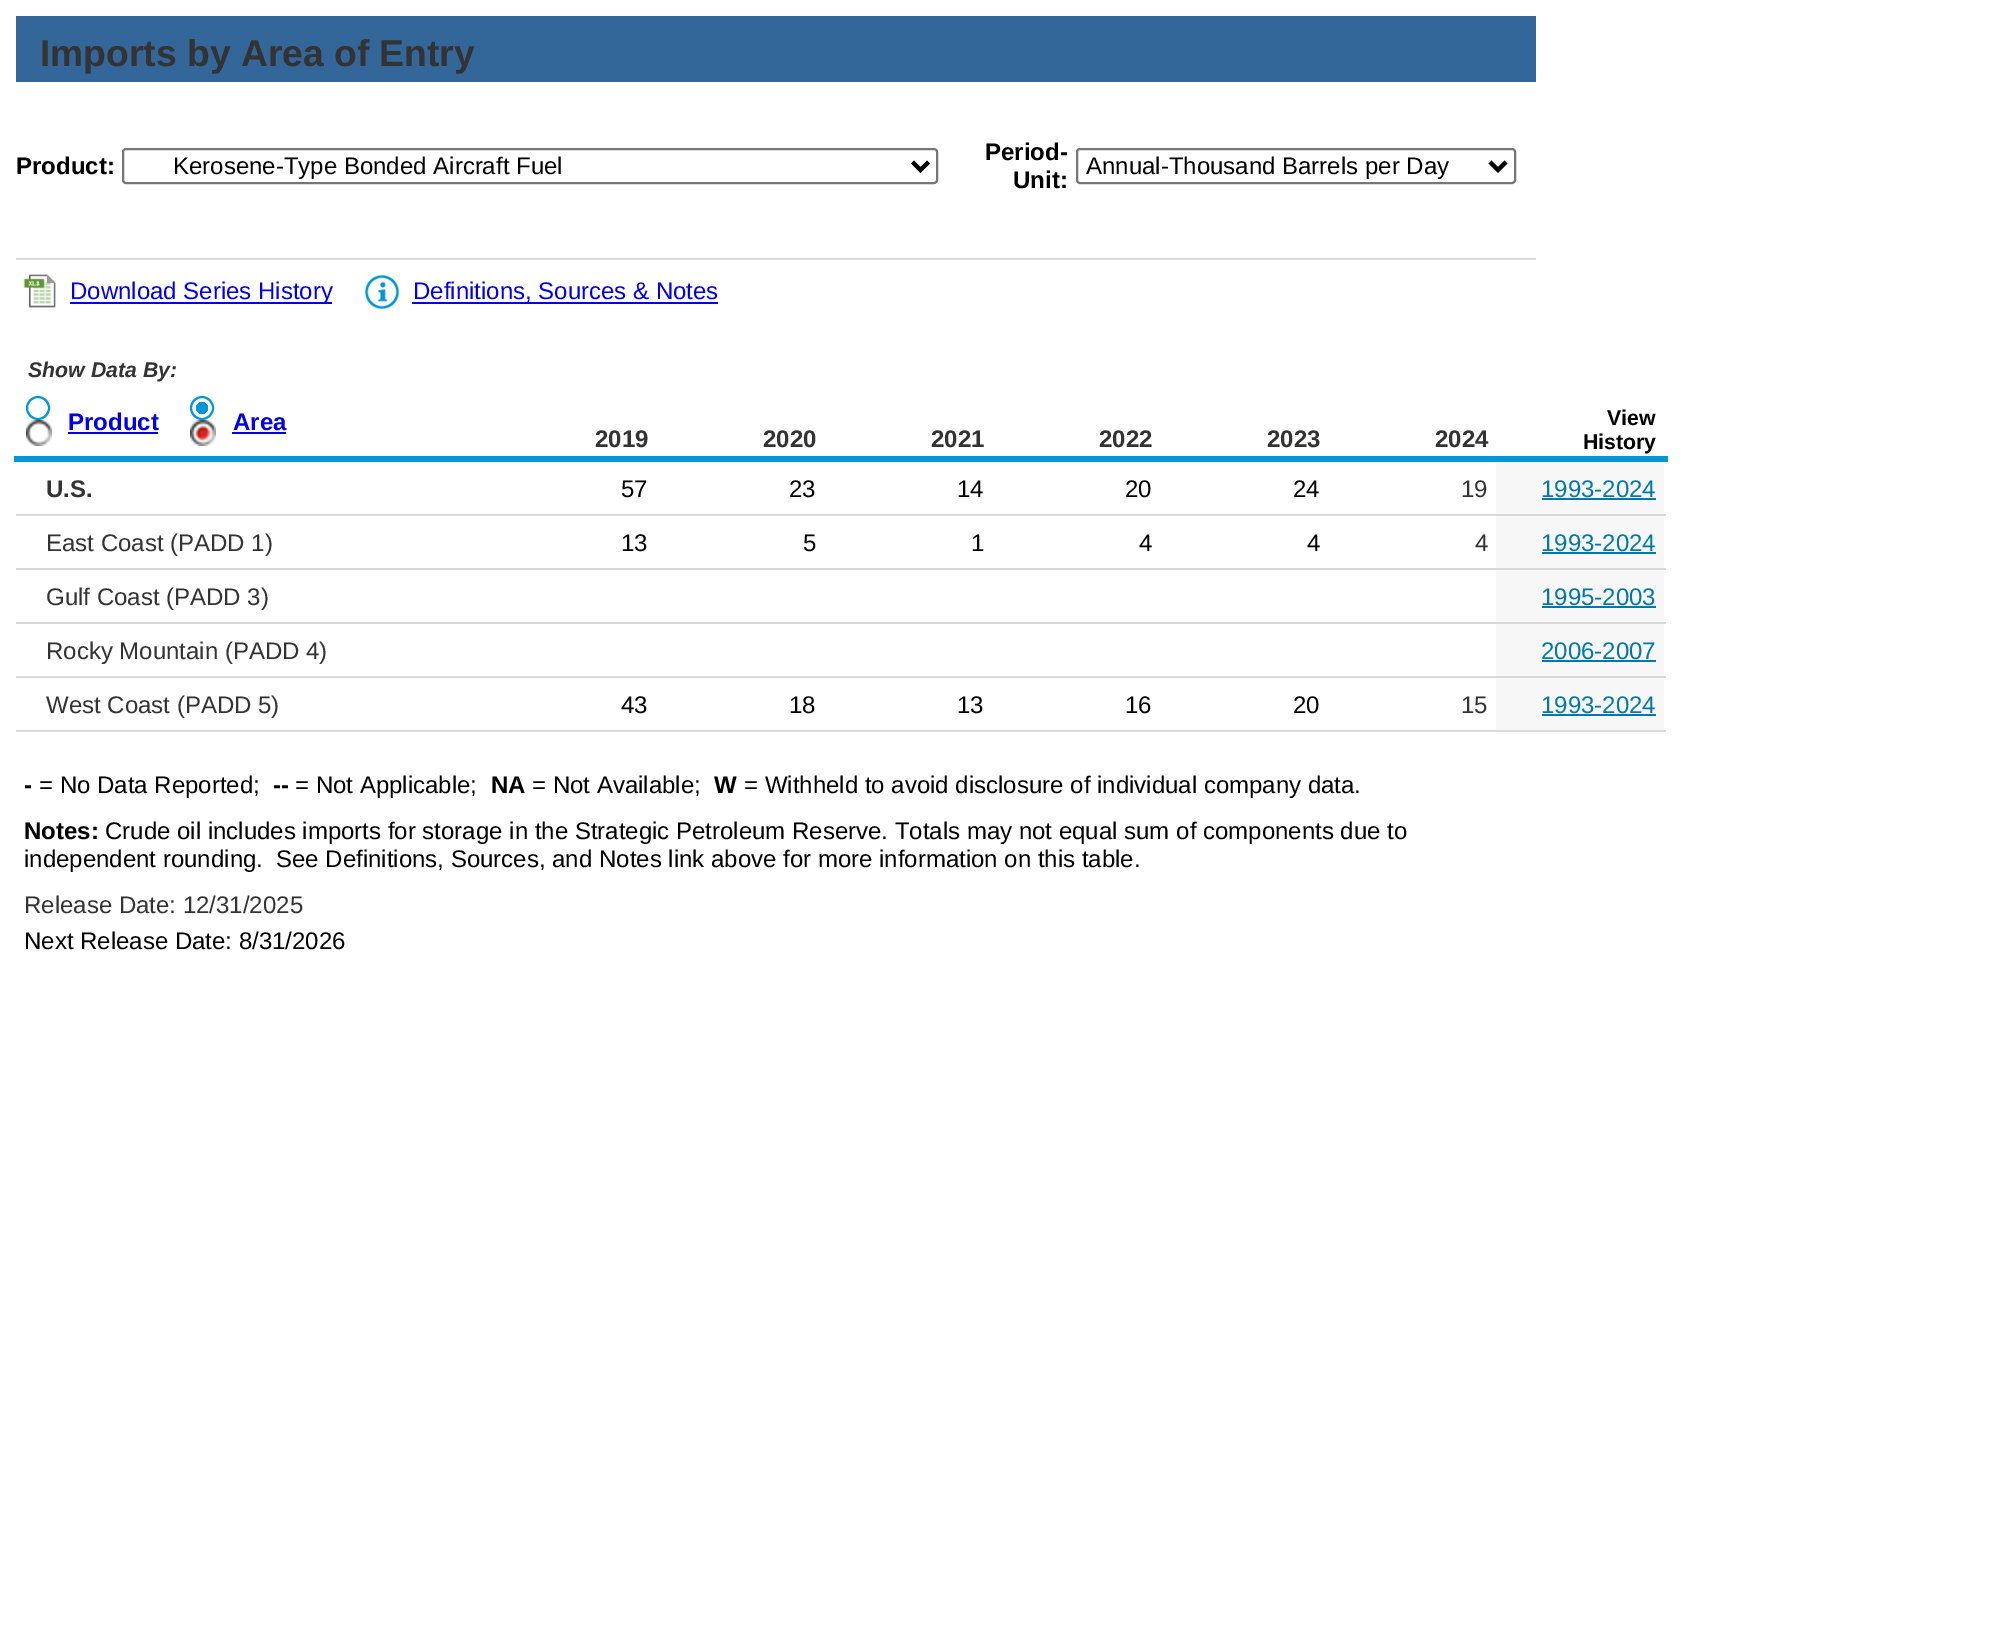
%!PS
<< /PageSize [2008 1644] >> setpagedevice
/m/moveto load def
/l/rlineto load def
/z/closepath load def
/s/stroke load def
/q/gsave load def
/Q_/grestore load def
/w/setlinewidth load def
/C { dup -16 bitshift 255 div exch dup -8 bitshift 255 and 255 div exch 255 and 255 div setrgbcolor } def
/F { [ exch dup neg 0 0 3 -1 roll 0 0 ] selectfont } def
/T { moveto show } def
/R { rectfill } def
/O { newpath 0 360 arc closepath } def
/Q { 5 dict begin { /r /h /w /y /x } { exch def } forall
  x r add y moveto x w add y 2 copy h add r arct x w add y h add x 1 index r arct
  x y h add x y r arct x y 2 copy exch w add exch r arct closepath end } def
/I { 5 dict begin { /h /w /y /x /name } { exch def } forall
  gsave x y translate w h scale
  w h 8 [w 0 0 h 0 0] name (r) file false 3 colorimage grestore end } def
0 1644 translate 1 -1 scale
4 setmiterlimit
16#FFFFFF C
0 0 2008 1644 R
16#D8D8D8 C
16 258 1520 2 R
16#336699 C
16 16 1520 66 R
/LiberationSans-Bold 37.25 F
16#333333 C
(Imports by Area of Entry) 40 66 T
/LiberationSans-Bold 24 F
16#000000 C
(Product:) 16 174 T
16#767676 C
2 w
123 149 814 34 3 Q s
16#000000 C
4 w
912.5 162 m 8 8 l 8 -8 l s
/LiberationSans-Regular 24 F
(Kerosene-Type Bonded Aircraft Fuel) 173 174 T
/LiberationSans-Bold 24 F
(Period-) 985 160 T
(Unit:) 1013 188 T
16#767676 C
2 w
1077 149 438 34 3 Q s
16#000000 C
4 w
1490 162 m 8 8 l 8 -8 l s
/LiberationSans-Regular 24 F
(Annual-Thousand Barrels per Day) 1086 174 T
(1.rgb) 23 274 33 34 I
16#0000EE C
70 302 262 2 R
(Download Series History) 70 299 T
(2.rgb) 364 274 36 36 I
412 302 306 2 R
(Definitions, Sources & Notes) 413 299 T
/LiberationSans-BoldItalic 21.25 F
16#333333 C
(Show Data By:) 28 377 T
16#0096D7 C
2 w
38 408 11 O s
(3.rgb) 26 420 26 26 I
/LiberationSans-Bold 24 F
16#0000EE C
(Product) 68 430 T
68 432 90 2 R
q
190 396 24 24 12 Q clip newpath
q 192 398 m 20 0 l 0 20 l -20 0 l z clip newpath 202 408 translate 14 14 scale
<< /ShadingType 3 /ColorSpace /DeviceRGB /Coords [0 0 0 0 0 1] /Extend [true true] /Function << /FunctionType 3 /Domain [0 1] /Functions [<< /FunctionType 2 /Domain [0 1] /C0 [0 .588 .843] /C1 [0 .588 .843] /N 1 >> << /FunctionType 2 /Domain [0 1] /C0 [1 1 1] /C1 [1 1 1] /N 1 >>] /Bounds [.45] /Encode [0 1 0 1] >> >> shfill Q_
Q_
16#0096D7 C
202 408 11 O s
(4.rgb) 190 420 26 26 I
16#0000EE C
(Area) 233 430 T
232 432 54 2 R
16#333333 C
(2019) 595 447 T
(2020) 763 447 T
(2021) 931 447 T
(2022) 1099 447 T
(2023) 1267 447 T
(2024) 1435 447 T
16#0096D7 C
14 456 1654 6 R
/LiberationSans-Bold 21.25 F
16#000000 C
(View) 1607 425 T
(History) 1583 449 T
/LiberationSans-Bold 24 F
16#333333 C
(U.S.) 46 497 T
/LiberationSans-Regular 24 F
16#000000 C
(57) 621 497 T
(23) 789 497 T
(14) 957 497 T
(20) 1125 497 T
(24) 1293 497 T
16#333333 C
(19) 1461 497 T
16#F7F7F7 C
1496 462 168 52 R
16#D8D8D8 C
16 514 1650 2 R
16#0078AC C
(1993-2024) 1541 497 T
1542 498 114 2 R
16#333333 C
(East Coast \(PADD 1\)) 46 551 T
16#000000 C
(13) 621 551 T
(5) 803 551 T
(1) 971 551 T
(4) 1139 551 T
(4) 1307 551 T
16#333333 C
(4) 1475 551 T
16#F7F7F7 C
1496 516 168 52 R
16#D8D8D8 C
16 568 1650 2 R
16#0078AC C
(1993-2024) 1541 551 T
1542 552 114 2 R
16#333333 C
(Gulf Coast \(PADD 3\)) 46 605 T
16#F7F7F7 C
1496 570 168 52 R
16#D8D8D8 C
16 622 1650 2 R
16#0078AC C
(1995-2003) 1541 605 T
1542 606 114 2 R
16#333333 C
(Rocky Mountain \(PADD 4\)) 46 659 T
16#F7F7F7 C
1496 624 168 52 R
16#D8D8D8 C
16 676 1650 2 R
16#0078AC C
(2006-2007) 1541 659 T
1542 660 114 2 R
16#333333 C
(West Coast \(PADD 5\)) 46 713 T
16#000000 C
(43) 621 713 T
(18) 789 713 T
(13) 957 713 T
(16) 1125 713 T
(20) 1293 713 T
16#333333 C
(15) 1461 713 T
16#F7F7F7 C
1496 678 168 52 R
16#D8D8D8 C
16 730 1650 2 R
16#0078AC C
(1993-2024) 1541 713 T
1542 714 114 2 R
/LiberationSans-Bold 24 F
16#000000 C
(-) 24 793 T
/LiberationSans-Regular 24 F
(= No Data Reported;) 39 793 T
/LiberationSans-Bold 24 F
(--) 273 793 T
/LiberationSans-Regular 24 F
(= Not Applicable;) 295 793 T
/LiberationSans-Bold 24 F
(NA) 491 793 T
/LiberationSans-Regular 24 F
(= Not Available;) 532 793 T
/LiberationSans-Bold 24 F
(W) 714 793 T
/LiberationSans-Regular 24 F
(= Withheld to avoid disclosure of individual company data.) 744 793 T
/LiberationSans-Bold 24 F
(Notes:) 24 839 T
/LiberationSans-Regular 24 F
(Crude oil includes imports for storage in the Strategic Petroleum Reserve. Totals may not equal sum of components due to) 105 839 T
(independent rounding.) 24 867 T
(See Definitions, Sources, and Notes link above for more information on this table.) 276 867 T
16#333333 C
(Release Date: 12/31/2025) 24 913 T
16#000000 C
(Next Release Date: 8/31/2026) 24 949 T
showpage
